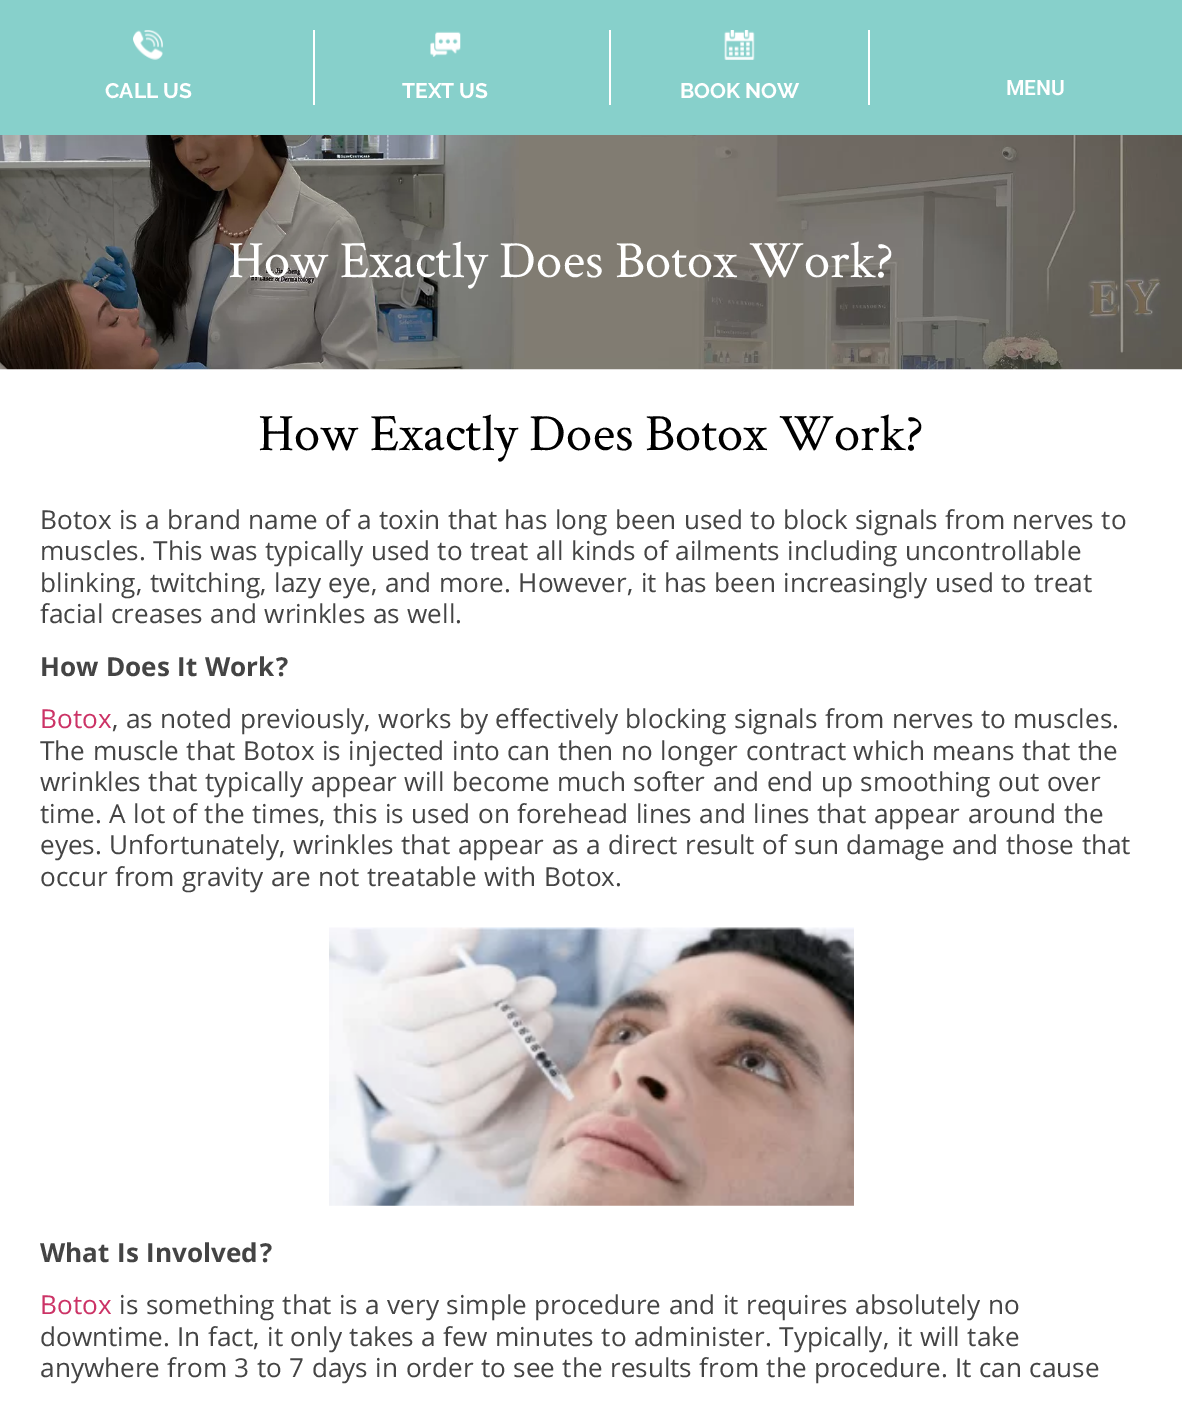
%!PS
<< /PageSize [1182 1401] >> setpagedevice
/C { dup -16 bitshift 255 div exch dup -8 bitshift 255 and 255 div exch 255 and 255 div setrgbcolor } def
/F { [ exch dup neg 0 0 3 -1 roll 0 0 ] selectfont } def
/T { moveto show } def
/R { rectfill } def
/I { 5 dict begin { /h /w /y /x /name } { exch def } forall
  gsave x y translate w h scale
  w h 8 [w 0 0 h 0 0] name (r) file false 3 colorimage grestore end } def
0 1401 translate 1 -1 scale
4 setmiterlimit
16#FFFFFF C
0 0 1182 1401 R
16#87D0CB C
0 0 1182 135 R
(1.rgb) 133 30 30 30 I
/Raleway-Bold 21 F
16#FFFFFF C
(CALL US) 105 98 T
313 30 2 75 R
(2.rgb) 430 31 31 26 I
(TEXT US) 402 98 T
868 30 2 75 R
609 30 2 75 R
(3.rgb) 724 30 31 30 I
(BOOK NOW) 680 98 T
/Roboto-SemiBold 21 F
(MENU) 1006 95 T
(4.rgb) 0 135 1182 235 I
/CrimsonText-Regular 52.5 F
(How Exactly Does Botox Work?) 228 277 T
/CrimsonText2-Regular 52.5 F
16#000000 C
(How Exactly Does Botox Work?) 258 450 T
/Khula-Regular 28 F
16#444444 C
(Botox is a brand name of a toxin that has long been used to block signals from nerves to) 40 529 T
(muscles. This was typically used to treat all kinds of ailments including uncontrollable) 40 560 T
(blinking, twitching, lazy eye, and more. However, it has been increasingly used to treat) 40 592 T
(facial creases and wrinkles as well.) 40 623 T
/Khula-Bold 28 F
(How Does It Work?) 40 676 T
/Khula-Regular 28 F
16#CC3366 C
(Botox) 40 728 T
16#444444 C
(, as noted previously, works by effectively blocking signals from nerves to muscles.) 112 728 T
(The muscle that Botox is injected into can then no longer contract which means that the) 40 760 T
(wrinkles that typically appear will become much softer and end up smoothing out over) 40 791 T
(time. A lot of the times, this is used on forehead lines and lines that appear around the) 40 823 T
(eyes. Unfortunately, wrinkles that appear as a direct result of sun damage and those that) 40 854 T
(occur from gravity are not treatable with Botox.) 40 886 T
(5.rgb) 329 927 525 279 I
/Khula-Bold 28 F
(What Is Involved?) 40 1262 T
/Khula-Regular 28 F
16#CC3366 C
(Botox) 40 1314 T
16#444444 C
(is something that is a very simple procedure and it requires absolutely no) 119 1314 T
(downtime. In fact, it only takes a few minutes to administer. Typically, it will take) 40 1346 T
(anywhere from 3 to 7 days in order to see the results from the procedure. It can cause) 40 1377 T
showpage
